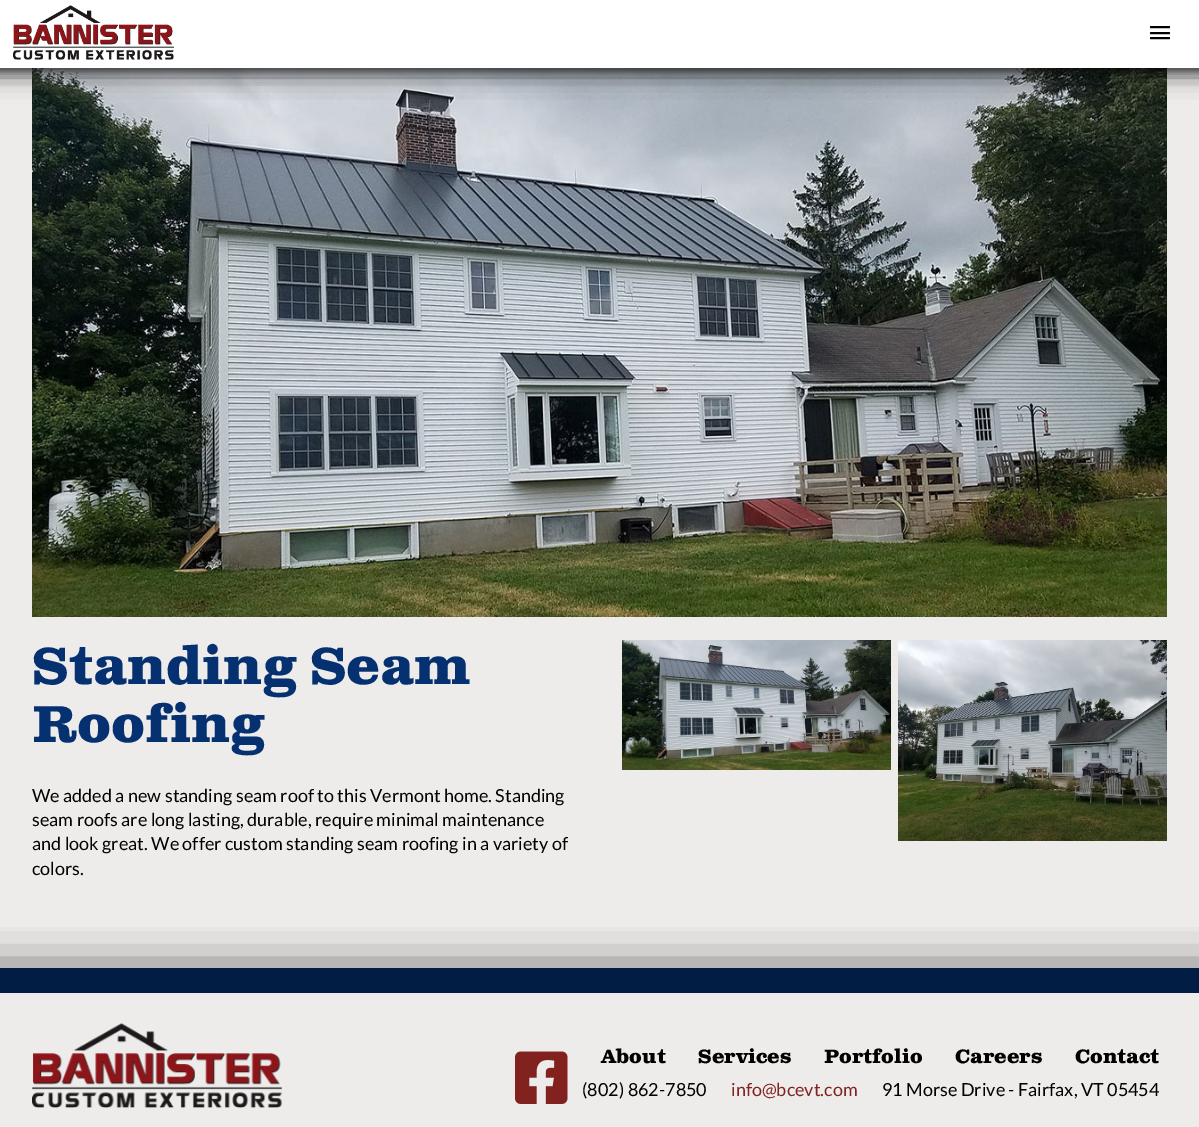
%!PS
<< /PageSize [1199 1127] /PageUsesTransparency true >> setpagedevice
/m/moveto load def
/l/rlineto load def
/c/rcurveto load def
/z/closepath load def
/f/fill load def
/q/gsave load def
/Q_/grestore load def
/C { dup -16 bitshift 255 div exch dup -8 bitshift 255 and 255 div exch 255 and 255 div setrgbcolor } def
/F { [ exch dup neg 0 0 3 -1 roll 0 0 ] selectfont } def
/T { moveto show } def
/R { rectfill } def
/A { dup .setfillconstantalpha .setstrokeconstantalpha } def
/Q { 5 dict begin { /r /h /w /y /x } { exch def } forall
  x r add y moveto x w add y 2 copy h add r arct x w add y h add x 1 index r arct
  x y h add x y r arct x y 2 copy exch w add exch r arct closepath end } def
/S { 12 dict begin { /a /b /q /h /w /y /x } { exch def } forall gsave /was 0 def
  9 -2 -9 { dup b mul 4 div /e exch def 1 sub .425 mul 2.718 exch exp 1 add a .99 .min exch div /now exch def
    1 1 now sub 1 was sub div sub A /was now def
    w h .min e 2 mul add 0 gt { x e sub y e sub w e 2 mul add h e 2 mul add
      q e add b .6 mul add w h .min 2 div e add .min 0 .max Q fill } if } for grestore end } def
/I { 5 dict begin { /h /w /y /x /name } { exch def } forall
  gsave x y translate w h scale
  w h 8 [w 0 0 h 0 0] name (r) file false 3 colorimage grestore end } def
0 .pushpdf14devicefilter
0 1127 translate 1 -1 scale
4 setmiterlimit
16#EEEBEB C
0 0 1199 1127 R
(2.rgb) 32 68 1135 549 I
16#000000 C
-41 -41 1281 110 0 13.5 .75 S
-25 -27 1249 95 0 9 .75 S
16#FFFFFF C
0 0 1199 68 R
16#BFBFBF C
1150 27.5 m -1 1.5 2 1.5 4 1.5 c 12 0 l 2 0 5 0 4 -1.5 c -1 .5 l -18 0 l z f
16#000000 C
1150 26 20 2 1 Q f
16#BFBFBF C
1150 33.5 m -1 1.5 2 1.5 4 1.5 c 12 0 l 2 0 5 0 4 -1.5 c -1 .5 l -18 0 l z f
16#000000 C
1150 32 20 2 1 Q f
16#BFBFBF C
1150 38.5 m -1 1.5 2 1.5 4 1.5 c 12 0 l 2 0 5 0 4 -1.5 c -1 .5 l -18 0 l z f
16#000000 C
1150 37 20 2 1 Q f
(1.rgb) 13 5 161 55 I
/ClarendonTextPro-Bold 52 F
16#063171 C
(Standing Seam) 32 684 T
(Roofing) 32 742 T
/Lato-Regular 18 F
16#000000 C
(We added a new standing seam roof to this Vermont home. Standing) 32 802 T
(seam roofs are long lasting, durable, require minimal maintenance) 32 826 T
(and look great. We offer custom standing seam roofing in a variety of) 32 850 T
(colors.) 32 875 T
(3.rgb) 622 640 269 130 I
(4.rgb) 898 640 269 201 I
q
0 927 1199 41 rectclip
-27 975 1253 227 0 25 .75 S
Q_
16#021D44 C
0 968 1199 25 R
(5.rgb) 32 1023 250 85 I
(6.rgb) 515 1051 53 53 I
/ClarendonTextPro-Bold 19.25 F
16#000000 C
(About) 601 1063 T
(Services) 698 1063 T
(Portfolio) 824 1063 T
(Careers) 955 1063 T
(Contact) 1075 1063 T
/Lato-Regular 18 F
(\(802\) 862-7850) 582 1096 T
16#81221F C
(info@bcevt.com) 731 1096 T
16#000000 C
(91 Morse Drive - Fairfax, VT 05454) 882 1096 T
.poppdf14devicefilter showpage
